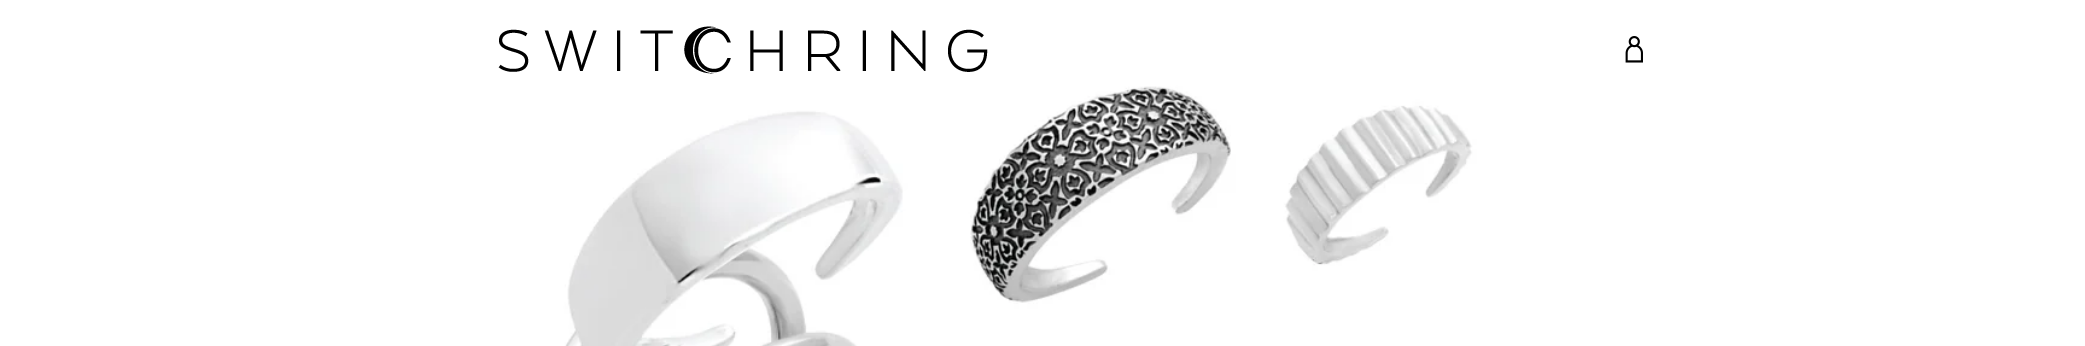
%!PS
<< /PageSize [2085 346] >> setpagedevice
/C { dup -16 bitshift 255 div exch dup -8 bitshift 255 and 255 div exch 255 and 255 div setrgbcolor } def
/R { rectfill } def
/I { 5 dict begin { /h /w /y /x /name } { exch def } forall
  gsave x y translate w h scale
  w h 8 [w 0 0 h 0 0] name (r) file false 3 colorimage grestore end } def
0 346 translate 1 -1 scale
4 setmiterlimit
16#FFFFFF C
0 0 2085 346 R
(1.rgb) 0 0 2085 346 I
(2.rgb) 498 26 490 48 I
(3.rgb) 1625 36 18 27 I
showpage
